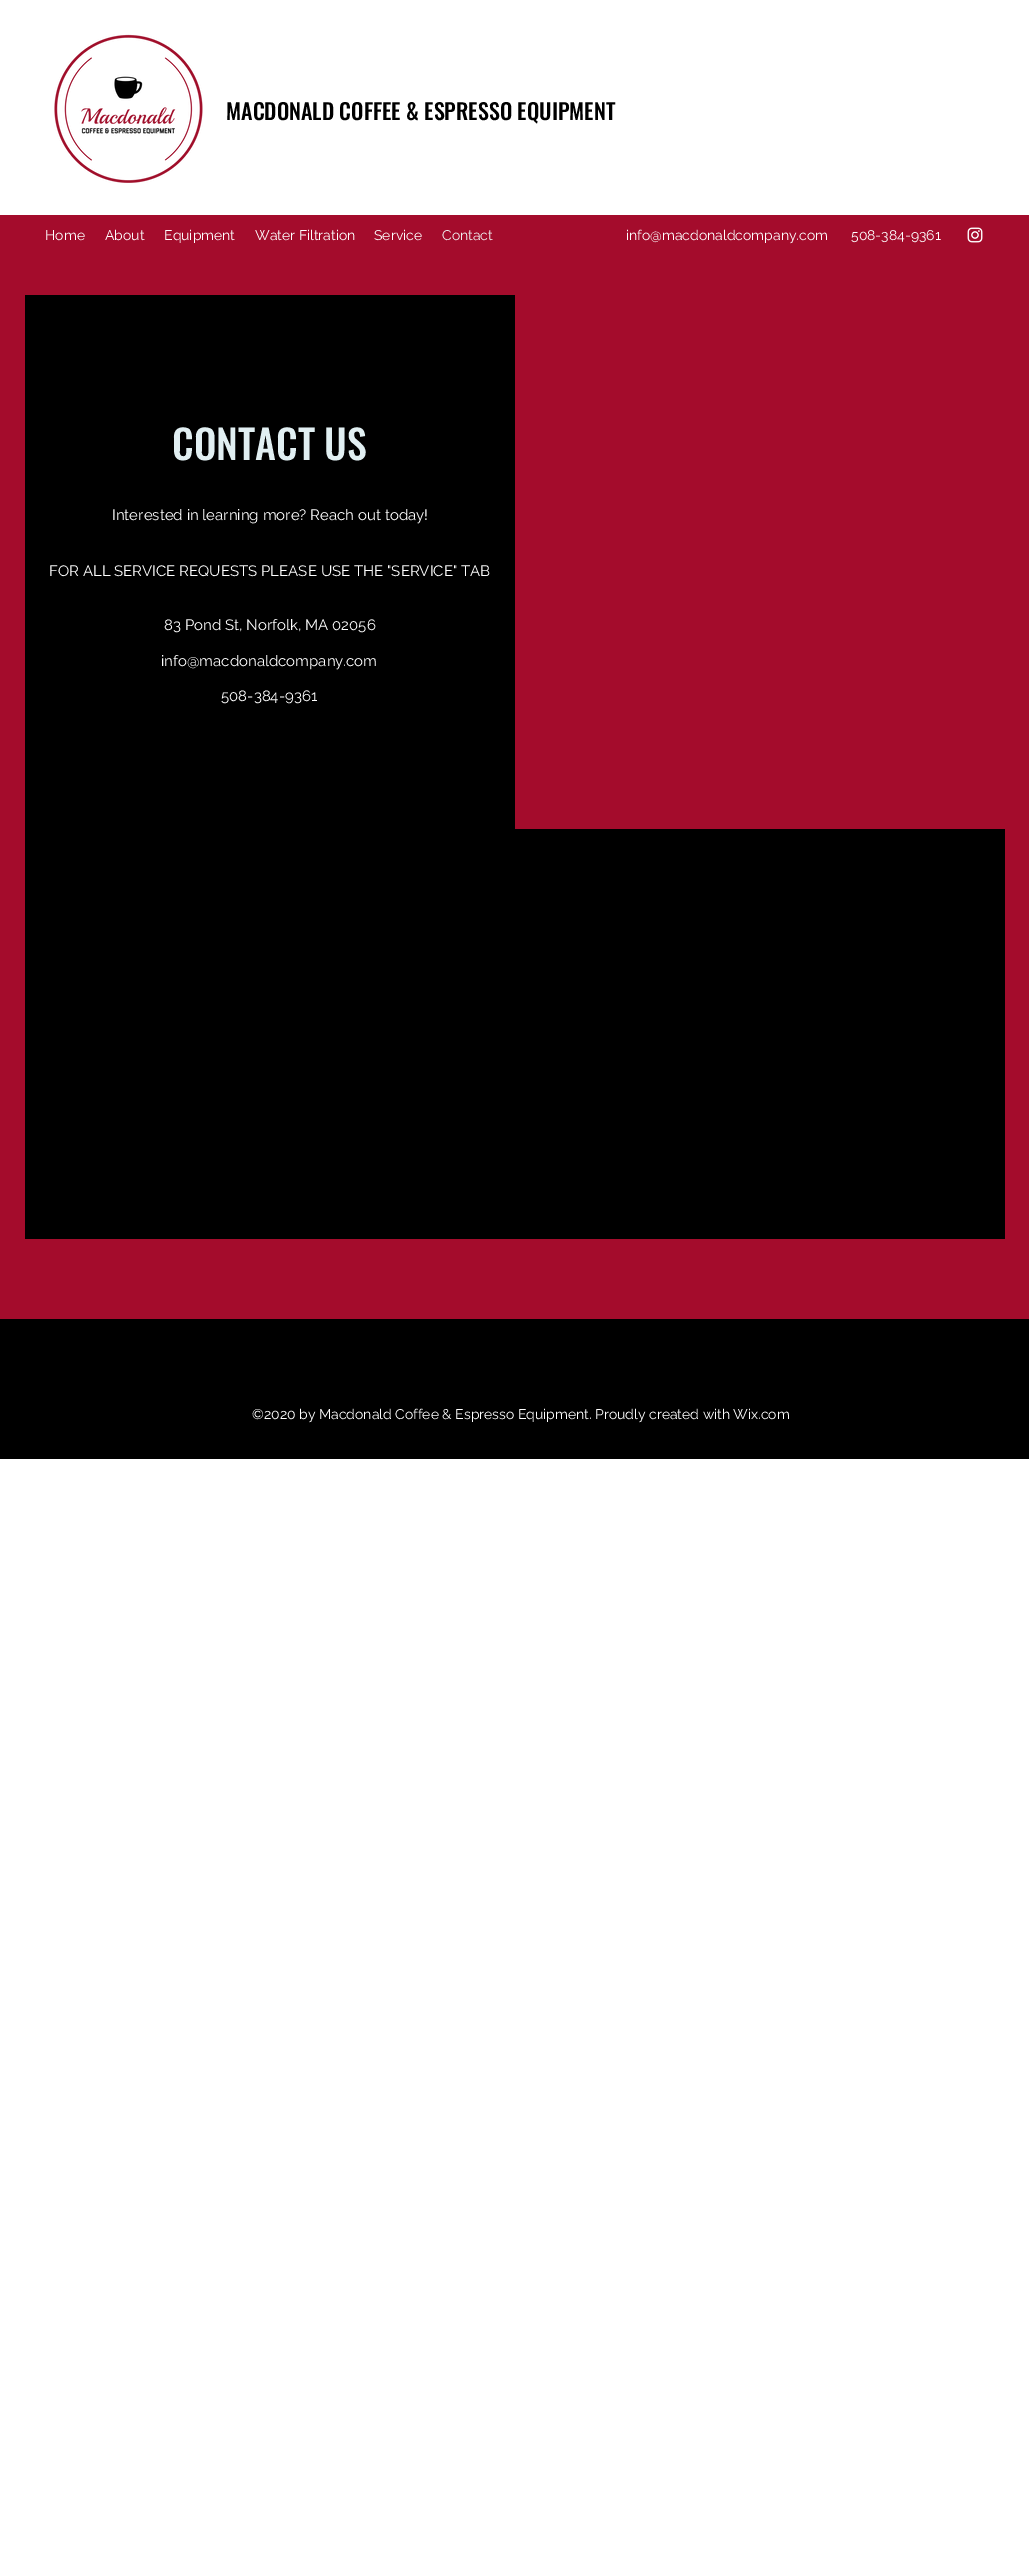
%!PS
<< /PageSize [1029 2573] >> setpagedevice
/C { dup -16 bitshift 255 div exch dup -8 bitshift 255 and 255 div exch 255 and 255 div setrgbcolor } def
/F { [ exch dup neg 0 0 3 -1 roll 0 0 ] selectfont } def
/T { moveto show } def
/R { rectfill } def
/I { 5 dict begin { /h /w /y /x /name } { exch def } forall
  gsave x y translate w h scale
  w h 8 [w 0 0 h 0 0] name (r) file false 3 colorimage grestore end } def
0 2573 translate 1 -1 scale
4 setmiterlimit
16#FFFFFF C
0 0 1029 2573 R
(1.rgb) 54 34 149 149 I
/Oswald-Medium 22 F
16#000000 C
(MACDONALD COFFEE & ESPRESSO EQUIPMENT) 226 120 T
16#A40C2C C
0 215 1029 1104 R
/Raleway-Regular 14 F
16#FFFFFF C
(Home) 45 240 T
(About) 105 240 T
(Equipment) 164 240 T
(Water Filtration) 255 240 T
(Service) 374 240 T
16#F0F0F0 C
(Contact) 442 240 T
16#FFFFFF C
(info@macdonaldcompany.com) 626 240 T
(508-384-9361) 851 240 T
(2.rgb) 967 227 16 16 I
16#000000 C
25 295 490 534 R
/Oswald-Medium 40 F
16#E1EFF2 C
(CONTACT US) 172 460 T
/Raleway-Regular 15 F
16#FFFFFF C
(Interested in learning more? Reach out today!) 112 520 T
(FOR ALL SERVICE REQUESTS PLEASE USE THE "SERVICE" TAB) 49 576 T
(83 Pond St, Norfolk, MA 02056) 164 630 T
(info@macdonaldcompany.com) 161 666 T
(508-384-9361) 221 701 T
16#000000 C
25 829 980 410 R
0 1319 1029 140 R
/Raleway-Regular 14 F
16#FFFFFF C
(©2020 by Macdonald Coffee & Espresso Equipment. Proudly created with Wix.com) 252 1419 T
showpage
